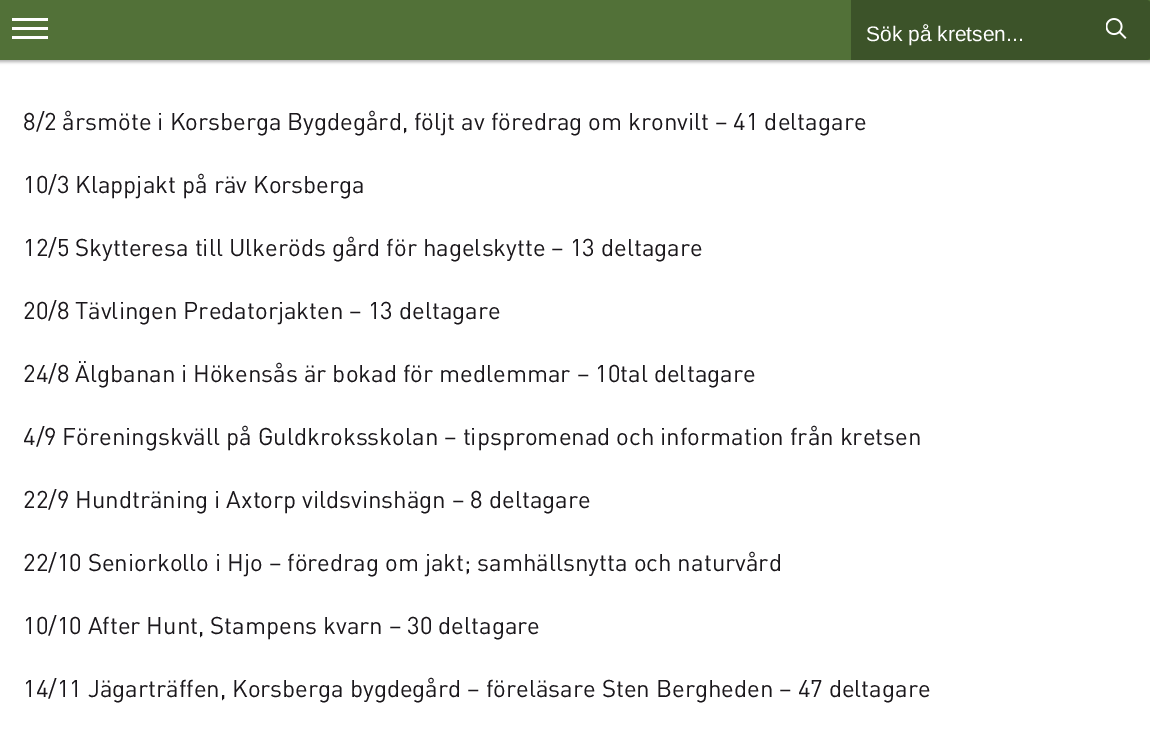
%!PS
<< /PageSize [1150 739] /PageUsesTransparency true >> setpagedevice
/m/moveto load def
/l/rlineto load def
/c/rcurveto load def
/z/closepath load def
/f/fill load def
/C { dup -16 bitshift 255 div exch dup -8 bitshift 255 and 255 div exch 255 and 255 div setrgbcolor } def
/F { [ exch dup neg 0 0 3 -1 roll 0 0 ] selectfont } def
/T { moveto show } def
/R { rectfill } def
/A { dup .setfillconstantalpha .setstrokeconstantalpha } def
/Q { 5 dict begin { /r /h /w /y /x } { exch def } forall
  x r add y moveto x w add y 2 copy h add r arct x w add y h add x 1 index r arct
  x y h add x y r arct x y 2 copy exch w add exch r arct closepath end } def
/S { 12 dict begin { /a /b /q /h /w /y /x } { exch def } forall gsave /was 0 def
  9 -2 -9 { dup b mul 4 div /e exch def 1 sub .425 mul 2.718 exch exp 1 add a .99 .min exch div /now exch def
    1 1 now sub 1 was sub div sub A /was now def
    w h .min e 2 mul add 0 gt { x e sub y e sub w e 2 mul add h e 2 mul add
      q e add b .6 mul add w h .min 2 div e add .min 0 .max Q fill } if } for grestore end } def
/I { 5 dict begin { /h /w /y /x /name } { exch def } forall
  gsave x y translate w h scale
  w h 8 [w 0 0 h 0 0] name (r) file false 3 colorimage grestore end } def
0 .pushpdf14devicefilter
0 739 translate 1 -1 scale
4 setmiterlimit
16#FFFFFF C
0 0 1150 739 R
16#000000 C
-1 -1 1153 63 0 1.5 .3 S
16#527138 C
0 0 1150 60 R
16#FFFFFF C
12 18 36 3 R
12 27 36 3 R
12 36 36 3 R
16#3C5329 C
851 0 m 295 0 l 3 0 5 2 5 5 c 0 50 l 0 3 -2 5 -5 5 c -295 0 l z f
/LiberationSans-Regular 21 F
16#FFFFFF C
(Sök på kretsen...) 866 41 T
(1.rgb) 1106 18 21 21 I
/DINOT-Regular 24 F
16#1A171B C
(8/2 årsmöte i Korsberga Bygdegård, följt av föredrag om kronvilt – 41 deltagare) 23 130 T
(10/3 Klappjakt på räv Korsberga) 23 193 T
(12/5 Skytteresa till Ulkeröds gård för hagelskytte – 13 deltagare) 23 256 T
(20/8 Tävlingen Predatorjakten – 13 deltagare) 23 319 T
(24/8 Älgbanan i Hökensås är bokad för medlemmar – 10tal deltagare) 23 382 T
(4/9 Föreningskväll på Guldkroksskolan – tipspromenad och information från kretsen) 23 445 T
(22/9 Hundträning i Axtorp vildsvinshägn – 8 deltagare) 23 508 T
(22/10 Seniorkollo i Hjo – föredrag om jakt; samhällsnytta och naturvård) 23 571 T
(10/10 After Hunt, Stampens kvarn – 30 deltagare) 23 634 T
(14/11 Jägarträffen, Korsberga bygdegård – föreläsare Sten Bergheden – 47 deltagare) 23 697 T
.poppdf14devicefilter showpage
